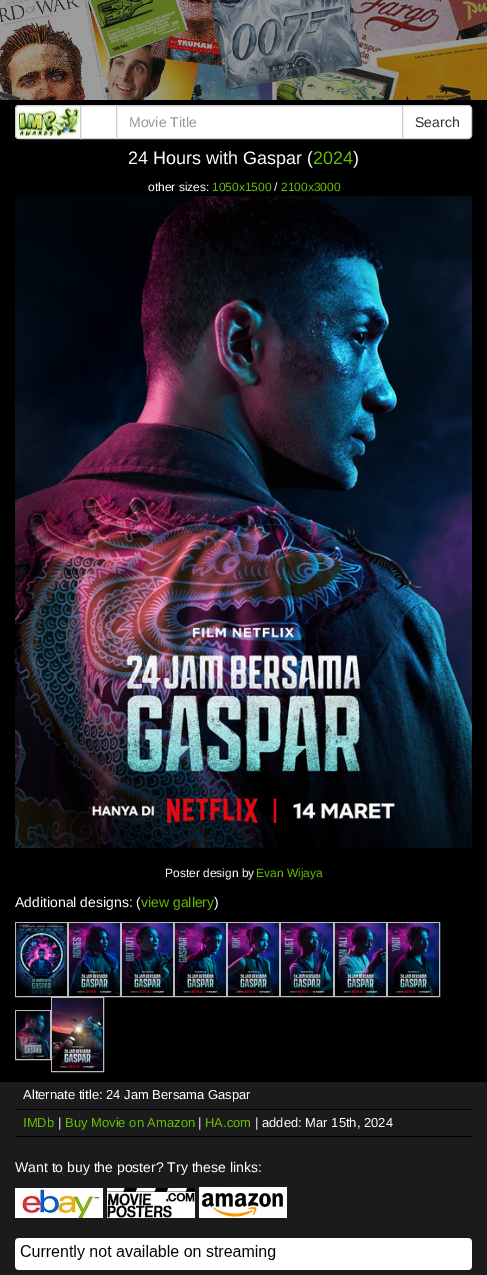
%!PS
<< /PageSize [487 1275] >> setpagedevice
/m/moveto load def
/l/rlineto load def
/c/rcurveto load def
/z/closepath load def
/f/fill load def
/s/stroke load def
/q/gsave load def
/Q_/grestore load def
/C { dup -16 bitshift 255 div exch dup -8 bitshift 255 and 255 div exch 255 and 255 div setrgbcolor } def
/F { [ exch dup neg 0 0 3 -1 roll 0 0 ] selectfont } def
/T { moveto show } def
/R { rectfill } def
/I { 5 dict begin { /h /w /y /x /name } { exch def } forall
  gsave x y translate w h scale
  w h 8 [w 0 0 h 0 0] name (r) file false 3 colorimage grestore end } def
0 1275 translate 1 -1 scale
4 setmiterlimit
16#000000 C
0 0 487 1275 R
(1.rgb) 0 0 487 100 I
16#FFFFFF C
19 105 m 63 0 l 0 34 l -63 0 l -2 0 -4 -2 -4 -4 c 0 -26 l 0 -2 2 -4 4 -4 c z f
(2.rgb) 16 106 64 32 I
16#CCCCCC C
19 105.5 m 62.5 0 l 0 33 l -62.5 0 l -2 0 -3.5 -1.5 -3.5 -3.5 c 0 -26 l 0 -2 1.5 -3.5 3.5 -3.5 c z s
16#FFFFFF C
80.5 105.5 m 36 0 l 0 33 l -36 0 l z q f Q_
16#CCCCCC C
s
16#FFFFFF C
117 107 285 31 R
16#ECECEC C
117 106 285 1 R
16#CCCCCC C
116.5 105.5 286 33 rectstroke
/LiberationSans-Regular 14 F
16#999999 C
(Movie Title) 129 127 T
16#FFFFFF C
402.5 105.5 m 65.5 0 l 2 0 3.5 1.5 3.5 3.5 c 0 26 l 0 2 -1.5 3.5 -3.5 3.5 c -65.5 0 l z q f Q_
16#CCCCCC C
s
16#333333 C
(Search) 415 127 T
/LiberationSans-Regular 18 F
16#FFFFFF C
(24 Hours with Gaspar \() 128 164 T
16#66BD04 C
(2024) 313 164 T
16#FFFFFF C
(\)) 353 164 T
/LiberationSans-Regular 12 F
(other sizes:) 148 191 T
16#66BD04 C
(1050x1500) 212 191 T
16#FFFFFF C
(/) 274 191 T
16#66BD04 C
(2100x3000) 281 191 T
(3.rgb) 15 196 457 652 I
16#FFFFFF C
(Poster design by) 165 877 T
16#66BD04 C
(Evan Wijaya) 256 877 T
/LiberationSans-Regular 14 F
16#FFFFFF C
(Additional designs: \() 15 907 T
16#66BD04 C
(view gallery) 141 907 T
16#FFFFFF C
(\)) 214 907 T
16#BCBCBC C
15.5 922.5 52 74 rectstroke
68.5 922.5 52 74 rectstroke
121.5 922.5 52 74 rectstroke
174.5 922.5 52 74 rectstroke
227.5 922.5 52 74 rectstroke
280.5 922.5 53 74 rectstroke
334.5 922.5 52 74 rectstroke
387.5 922.5 52 74 rectstroke
(4.rgb) 16 923 51 73 I
(5.rgb) 69 923 51 73 I
(6.rgb) 122 923 51 73 I
(7.rgb) 175 923 51 73 I
(8.rgb) 228 923 51 73 I
(9.rgb) 281 923 52 73 I
(10.rgb) 335 923 51 73 I
(11.rgb) 388 923 51 73 I
51.5 997.5 52 74 rectstroke
15.5 1010.5 35 49 rectstroke
(12.rgb) 52 998 51 73 I
(13.rgb) 16 1011 34 48 I
16#1B1B1B C
0 1082 487 193 R
16#000000 C
15 1109 457 1 R
/LiberationSans-Regular 13 F
16#FFFFFF C
(Alternate title: 24 Jam Bersama Gaspar) 23 1099 T
16#000000 C
15 1136 457 1 R
16#66BD04 C
(IMDb) 23 1127 T
16#FFFFFF C
(|) 58 1127 T
16#66BD04 C
(Buy Movie on Amazon) 65 1127 T
16#FFFFFF C
(|) 198 1127 T
16#66BD04 C
(HA.com) 205 1127 T
16#FFFFFF C
(| added: Mar 15th, 2024) 255 1127 T
/LiberationSans-Regular 14 F
(Want to buy the poster? Try these links:) 15 1172 T
(14.rgb) 15 1188 88 30 I
(15.rgb) 107 1188 88 30 I
(16.rgb) 199 1187 88 31 I
(17.rgb) 15 1238 457 32 I
showpage
